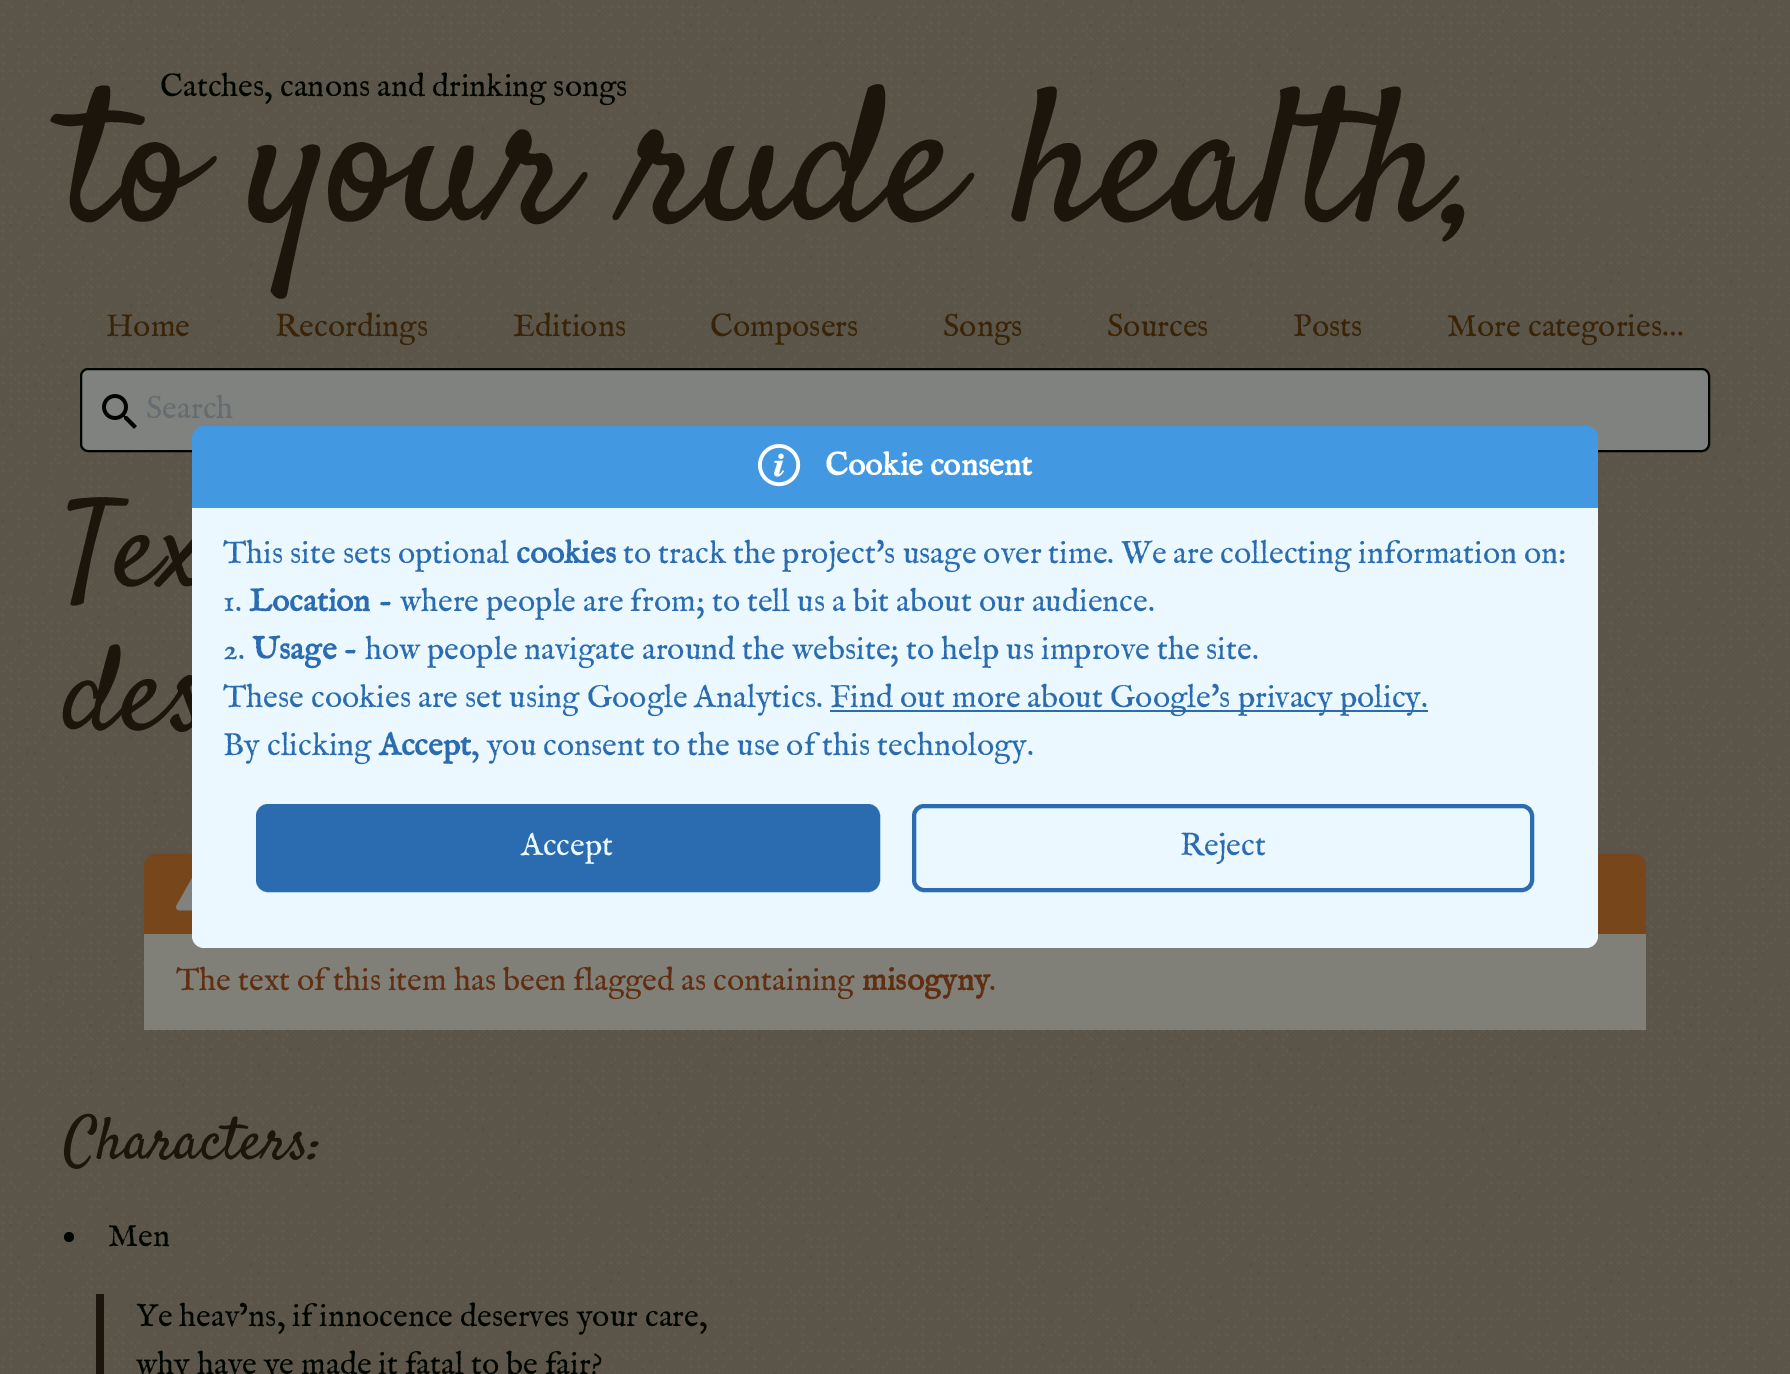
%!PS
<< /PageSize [1790 1374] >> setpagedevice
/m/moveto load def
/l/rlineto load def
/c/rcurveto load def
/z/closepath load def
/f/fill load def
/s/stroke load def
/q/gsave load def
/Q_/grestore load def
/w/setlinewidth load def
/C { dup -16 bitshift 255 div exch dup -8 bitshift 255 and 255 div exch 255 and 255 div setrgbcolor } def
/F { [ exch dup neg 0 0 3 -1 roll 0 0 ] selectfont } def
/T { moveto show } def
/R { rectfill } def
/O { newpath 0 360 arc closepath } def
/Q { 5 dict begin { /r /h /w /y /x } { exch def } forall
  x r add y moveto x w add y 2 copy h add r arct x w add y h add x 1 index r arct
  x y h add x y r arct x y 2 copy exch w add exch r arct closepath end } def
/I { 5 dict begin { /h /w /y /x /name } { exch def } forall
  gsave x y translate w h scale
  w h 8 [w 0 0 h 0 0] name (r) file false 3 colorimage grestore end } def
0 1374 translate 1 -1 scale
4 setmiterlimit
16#62594C C
0 0 1790 1374 R
(1.rgb) 0 0 1790 1374 I
(4.rgb) 0 0 1790 1374 I
/IMFELLEnglish-Regular 32 F
16#000500 C
(Catches, canons and drinking songs) 160 96 T
/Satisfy-Regular 192 F
16#1B150C C
(to your rude health,) 64 218 T
/IMFELLEnglish-Regular 32 F
16#3A2408 C
(Home) 106 336 T
(Recordings) 275 336 T
(Editions) 513 336 T
(Composers) 710 336 T
(Songs) 943 336 T
(Sources) 1107 336 T
(Posts) 1293 336 T
(More categories…) 1447 336 T
16#808280 C
81 369 1628 82 7 Q q f Q_
16#000500 C
2 w
s
(2.rgb) 102 394 35 35 I
16#666D70 C
(Search) 146 418 T
/Satisfy-Regular 120 F
16#1B150C C
(Tex) 64 584 T
(des) 64 728 T
16#77471B C
156 854 m 1478 0 l 6.5 0 12 5.5 12 12 c 0 68 l -1502 0 l 0 -68 l 0 -6.5 5.5 -12 12 -12 c z f
(3.rgb) 176 878 16 33 I
16#808078 C
144 934 1502 96 R
/IMFELLEnglish-Regular 32 F
16#602E11 C
(The text of this item has been flagged as containing) 176 990 T
/IMFELLEnglish-Bold 32 F
(misogyny) 862 990 T
/IMFELLEnglish-Regular 32 F
(.) 989 990 T
/Satisfy-Regular 60 F
16#1B150C C
(Characters:) 64 1158 T
16#000500 C
69 1237 5 O f
/IMFELLEnglish-Regular 32 F
(Men) 108 1246 T
16#1B150C C
96 1294 8 80 R
16#000500 C
(Ye heav’ns, if innocence deserves your care,) 136 1326 T
(why have ye made it fatal to be fair?) 136 1374 T
16#4299E1 C
204 426 m 1382 0 l 6.5 0 12 5.5 12 12 c 0 70 l -1406 0 l 0 -70 l 0 -6.5 5.5 -12 12 -12 c z f
(5.rgb) 758 444 43 43 I
/IMFELLEnglish-Bold 32 F
16#FFFFFC C
(Cookie consent) 825 475 T
16#EBF8FF C
192 508 m 1406 0 l 0 428 l 0 6.5 -5.5 12 -12 12 c -1382 0 l -6.5 0 -12 -5.5 -12 -12 c z f
/IMFELLEnglish-Regular 32 F
16#2B6CB0 C
(This site sets optional) 223 563 T
/IMFELLEnglish-Bold 32 F
(cookies) 516 563 T
/IMFELLEnglish-Regular 32 F
(to track the project's usage over time. We are collecting information on:) 623 563 T
(1.) 223 611 T
/IMFELLEnglish-Bold 32 F
(Location) 249 611 T
/IMFELLEnglish-Regular 32 F
(- where people are from; to tell us a bit about our audience.) 378 611 T
(2.) 223 659 T
/IMFELLEnglish-Bold 32 F
(Usage) 252 659 T
/IMFELLEnglish-Regular 32 F
(- how people navigate around the website; to help us improve the site.) 343 659 T
(These cookies are set using Google Analytics.) 223 707 T
830 710 598 2 R
(Find out more about Google's privacy policy.) 830 707 T
(By clicking) 223 755 T
/IMFELLEnglish-Bold 32 F
(Accept) 379 755 T
/IMFELLEnglish-Regular 32 F
(, you consent to the use of this technology.) 471 755 T
258 806 620 84 10 Q q f Q_
4 w
s
16#EBF8FF C
(Accept) 521 855 T
16#2B6CB0 C
914 806 618 84 10 Q s
(Reject) 1180 855 T
showpage
